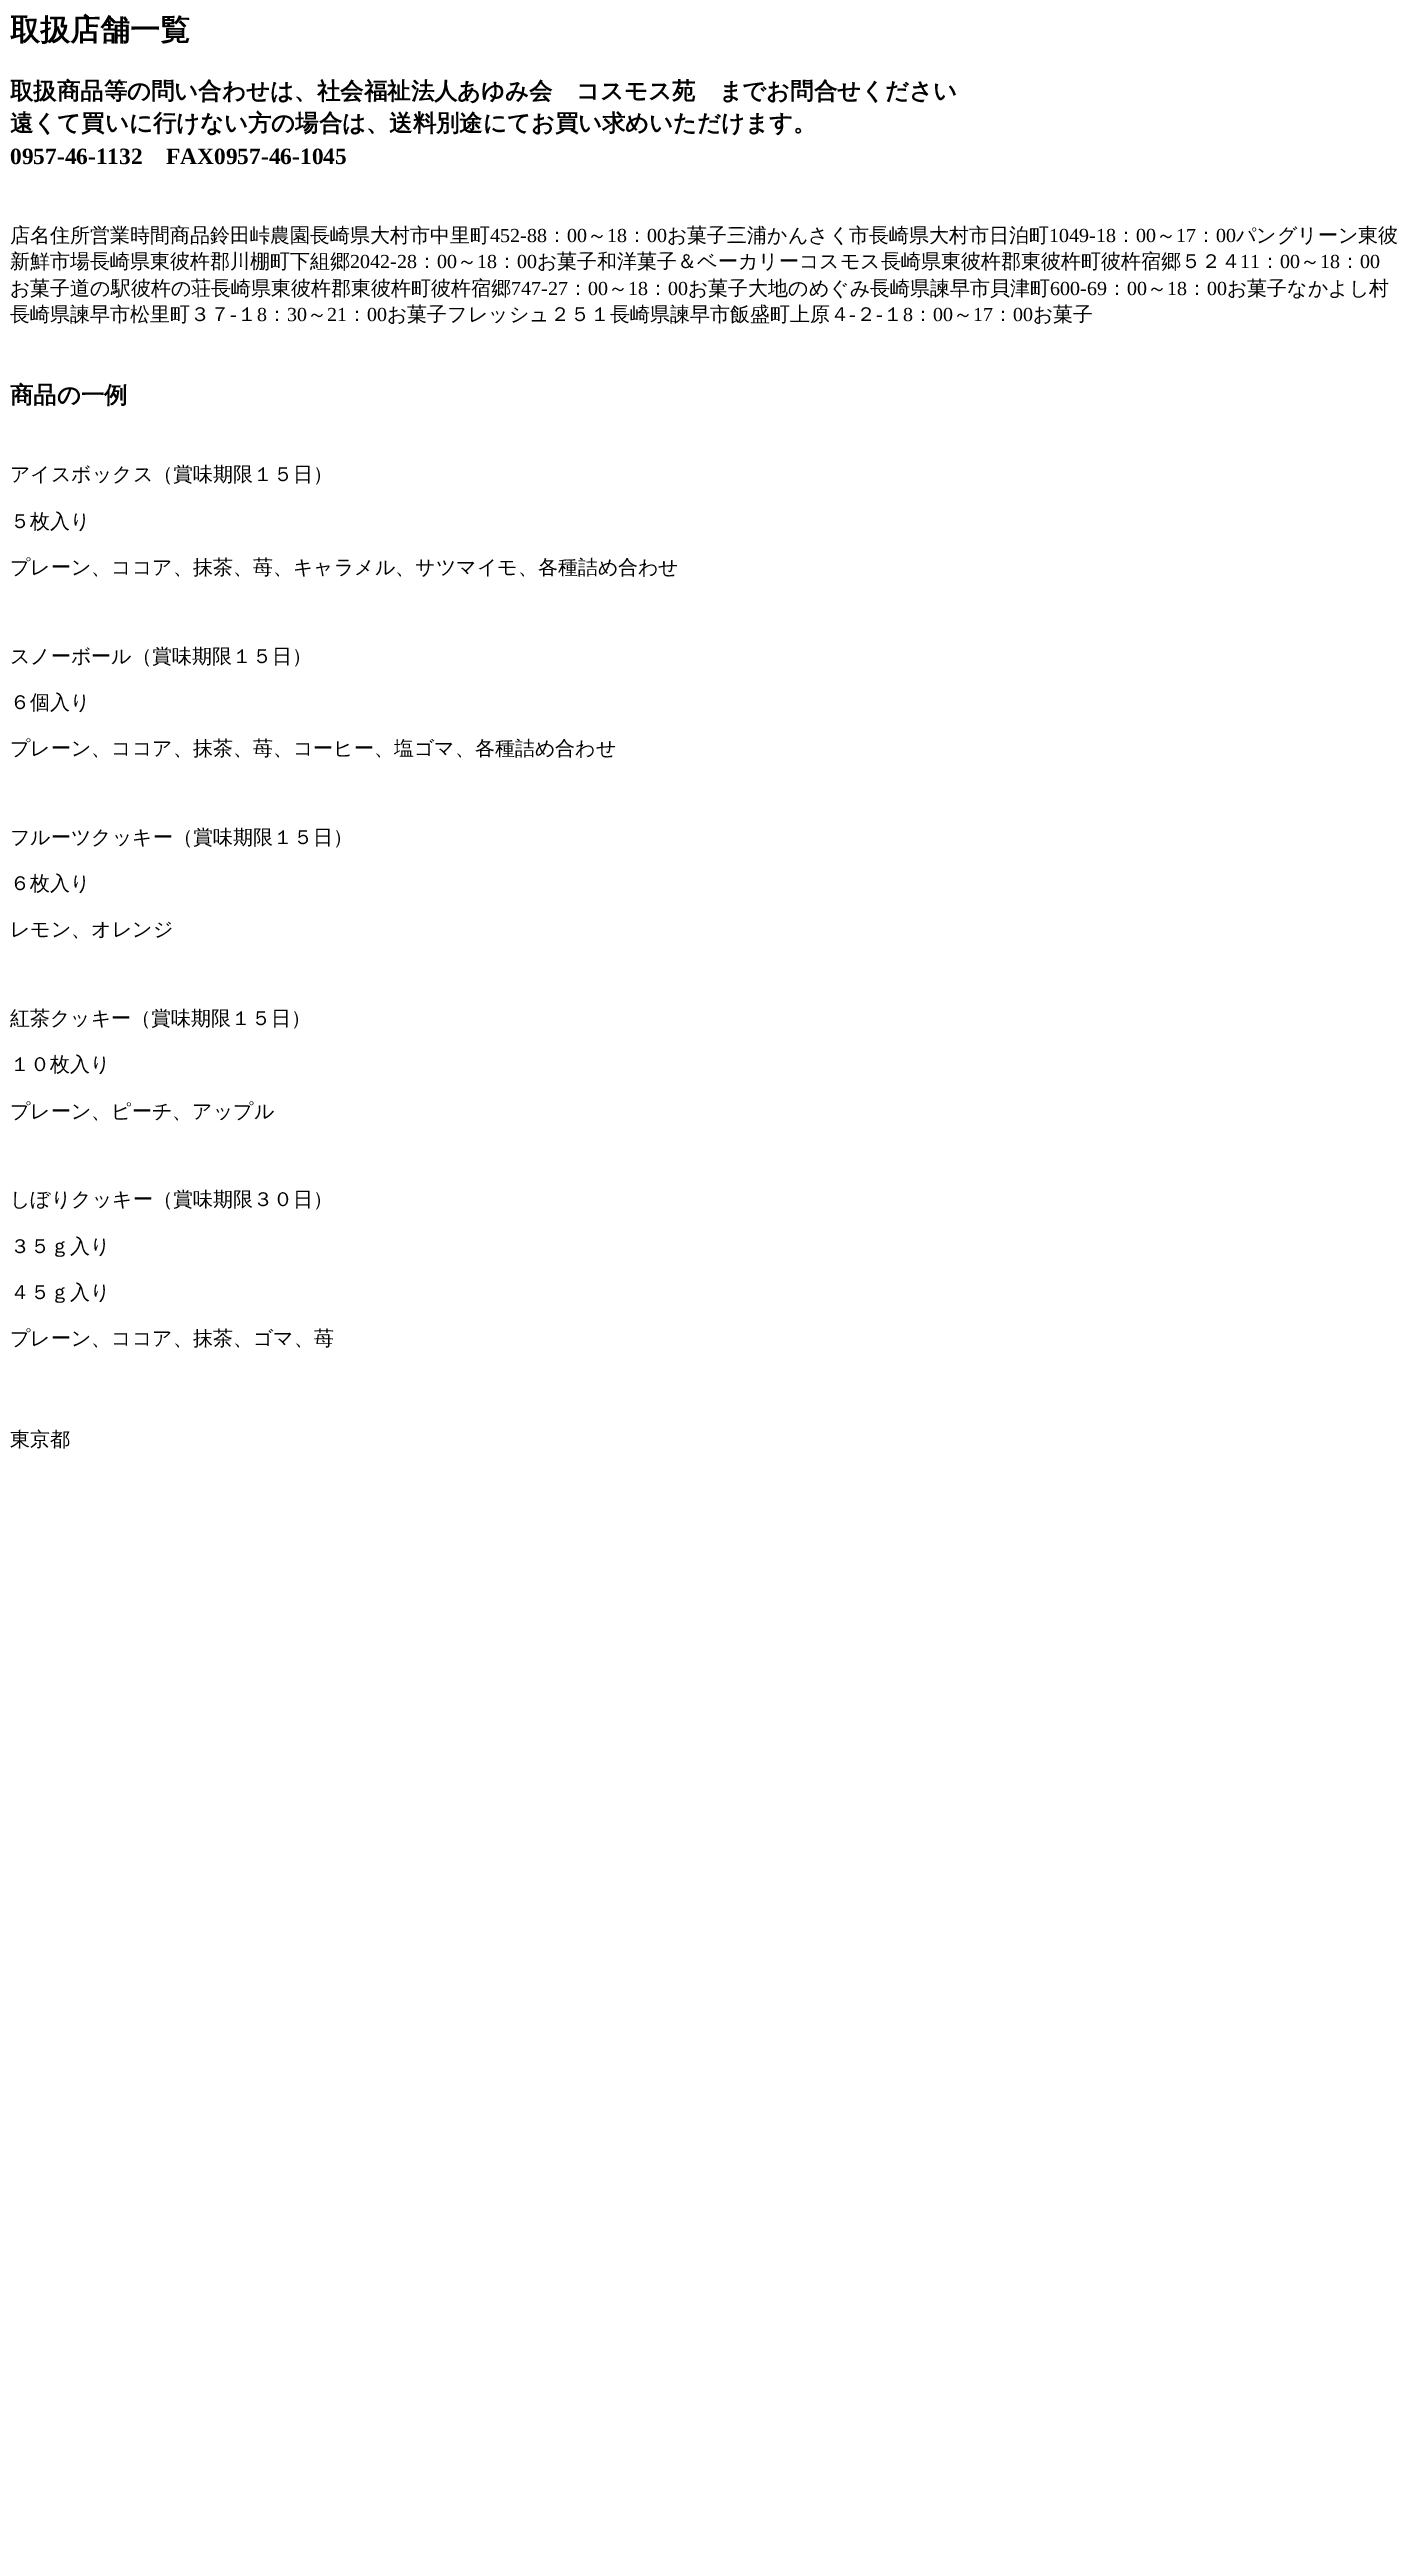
%!PS
<< /PageSize [1408 2560] >> setpagedevice
/C { dup -16 bitshift 255 div exch dup -8 bitshift 255 and 255 div exch 255 and 255 div setrgbcolor } def
/F { [ exch dup neg 0 0 3 -1 roll 0 0 ] selectfont } def
/T { moveto show } def
/R { rectfill } def
0 2560 translate 1 -1 scale
4 setmiterlimit
16#FFFFFF C
0 0 1408 2560 R
/WenQuanYiZenHei-Bold 30 F
16#000000 C
(取扱店舗一覧) 10 40 T
/WenQuanYiZenHei-Bold 23.4 F
(取扱商品等の問い合わせは、社会福祉法人あゆみ会　コスモス苑　までお問合せください) 10 99 T
(遠くて買いに行けない方の場合は、送料別途にてお買い求めいただけます。) 10 131 T
/LiberationSerif-Bold 23.4 F
(0957-46-1132) 10 164 T
(FAX0957-46-1045) 166 164 T
/WenQuanYiZenHei-Medium 20 F
(店名住所営業時間商品鈴田峠農園長崎県大村市中里町) 10 242 T
/LiberationSerif-Regular 20 F
(452-88) 490 242 T
/WenQuanYiZenHei-Medium 20 F
(：) 547 242 T
/LiberationSerif-Regular 20 F
(00) 567 242 T
/WenQuanYiZenHei-Medium 20 F
(～) 587 242 T
/LiberationSerif-Regular 20 F
(18) 607 242 T
/WenQuanYiZenHei-Medium 20 F
(：) 627 242 T
/LiberationSerif-Regular 20 F
(00) 647 242 T
/WenQuanYiZenHei-Medium 20 F
(お菓子三浦かんさく市長崎県大村市日泊町) 667 242 T
/LiberationSerif-Regular 20 F
(1049-18) 1049 242 T
/WenQuanYiZenHei-Medium 20 F
(：) 1116 242 T
/LiberationSerif-Regular 20 F
(00) 1136 242 T
/WenQuanYiZenHei-Medium 20 F
(～) 1156 242 T
/LiberationSerif-Regular 20 F
(17) 1176 242 T
/WenQuanYiZenHei-Medium 20 F
(：) 1196 242 T
/LiberationSerif-Regular 20 F
(00) 1216 242 T
/WenQuanYiZenHei-Medium 20 F
(パングリーン東彼) 1236 242 T
(新鮮市場長崎県東彼杵郡川棚町下組郷) 10 268 T
/LiberationSerif-Regular 20 F
(2042-28) 350 268 T
/WenQuanYiZenHei-Medium 20 F
(：) 417 268 T
/LiberationSerif-Regular 20 F
(00) 437 268 T
/WenQuanYiZenHei-Medium 20 F
(～) 457 268 T
/LiberationSerif-Regular 20 F
(18) 477 268 T
/WenQuanYiZenHei-Medium 20 F
(：) 497 268 T
/LiberationSerif-Regular 20 F
(00) 517 268 T
/WenQuanYiZenHei-Medium 20 F
(お菓子和洋菓子＆ベーカリーコスモス長崎県東彼杵郡東彼杵町彼杵宿郷５２４) 537 268 T
/LiberationSerif-Regular 20 F
(11) 1240 268 T
/WenQuanYiZenHei-Medium 20 F
(：) 1260 268 T
/LiberationSerif-Regular 20 F
(00) 1280 268 T
/WenQuanYiZenHei-Medium 20 F
(～) 1300 268 T
/LiberationSerif-Regular 20 F
(18) 1320 268 T
/WenQuanYiZenHei-Medium 20 F
(：) 1340 268 T
/LiberationSerif-Regular 20 F
(00) 1360 268 T
/WenQuanYiZenHei-Medium 20 F
(お菓子道の駅彼杵の荘長崎県東彼杵郡東彼杵町彼杵宿郷) 10 295 T
/LiberationSerif-Regular 20 F
(747-27) 511 295 T
/WenQuanYiZenHei-Medium 20 F
(：) 568 295 T
/LiberationSerif-Regular 20 F
(00) 588 295 T
/WenQuanYiZenHei-Medium 20 F
(～) 608 295 T
/LiberationSerif-Regular 20 F
(18) 628 295 T
/WenQuanYiZenHei-Medium 20 F
(：) 648 295 T
/LiberationSerif-Regular 20 F
(00) 668 295 T
/WenQuanYiZenHei-Medium 20 F
(お菓子大地のめぐみ長崎県諫早市貝津町) 688 295 T
/LiberationSerif-Regular 20 F
(600-69) 1050 295 T
/WenQuanYiZenHei-Medium 20 F
(：) 1107 295 T
/LiberationSerif-Regular 20 F
(00) 1127 295 T
/WenQuanYiZenHei-Medium 20 F
(～) 1147 295 T
/LiberationSerif-Regular 20 F
(18) 1167 295 T
/WenQuanYiZenHei-Medium 20 F
(：) 1187 295 T
/LiberationSerif-Regular 20 F
(00) 1207 295 T
/WenQuanYiZenHei-Medium 20 F
(お菓子なかよし村) 1227 295 T
(長崎県諫早市松里町３７) 10 321 T
/LiberationSerif-Regular 20 F
(-) 230 321 T
/WenQuanYiZenHei-Medium 20 F
(１) 237 321 T
/LiberationSerif-Regular 20 F
(8) 257 321 T
/WenQuanYiZenHei-Medium 20 F
(：) 267 321 T
/LiberationSerif-Regular 20 F
(30) 287 321 T
/WenQuanYiZenHei-Medium 20 F
(～) 307 321 T
/LiberationSerif-Regular 20 F
(21) 327 321 T
/WenQuanYiZenHei-Medium 20 F
(：) 347 321 T
/LiberationSerif-Regular 20 F
(00) 367 321 T
/WenQuanYiZenHei-Medium 20 F
(お菓子フレッシュ２５１長崎県諫早市飯盛町上原４) 387 321 T
/LiberationSerif-Regular 20 F
(-) 849 321 T
/WenQuanYiZenHei-Medium 20 F
(２) 856 321 T
/LiberationSerif-Regular 20 F
(-) 876 321 T
/WenQuanYiZenHei-Medium 20 F
(１) 883 321 T
/LiberationSerif-Regular 20 F
(8) 903 321 T
/WenQuanYiZenHei-Medium 20 F
(：) 913 321 T
/LiberationSerif-Regular 20 F
(00) 933 321 T
/WenQuanYiZenHei-Medium 20 F
(～) 953 321 T
/LiberationSerif-Regular 20 F
(17) 973 321 T
/WenQuanYiZenHei-Medium 20 F
(：) 993 321 T
/LiberationSerif-Regular 20 F
(00) 1013 321 T
/WenQuanYiZenHei-Medium 20 F
(お菓子) 1033 321 T
/WenQuanYiZenHei-Bold 23.4 F
(商品の一例) 10 403 T
/WenQuanYiZenHei-Medium 20 F
(アイスボックス（賞味期限１５日）) 10 481 T
(５枚入り) 10 528 T
(プレーン、ココア、抹茶、苺、キャラメル、サツマイモ、各種詰め合わせ) 10 574 T
(スノーボール（賞味期限１５日）) 10 663 T
(６個入り) 10 709 T
(プレーン、ココア、抹茶、苺、コーヒー、塩ゴマ、各種詰め合わせ) 10 755 T
(フルーツクッキー（賞味期限１５日）) 10 844 T
(６枚入り) 10 890 T
(レモン、オレンジ) 10 936 T
(紅茶クッキー（賞味期限１５日）) 10 1025 T
(１０枚入り) 10 1071 T
(プレーン、ピーチ、アップル) 10 1118 T
(しぼりクッキー（賞味期限３０日）) 10 1206 T
(３５ｇ入り) 10 1253 T
(４５ｇ入り) 10 1299 T
(プレーン、ココア、抹茶、ゴマ、苺) 10 1345 T
(東京都) 10 1446 T
showpage
